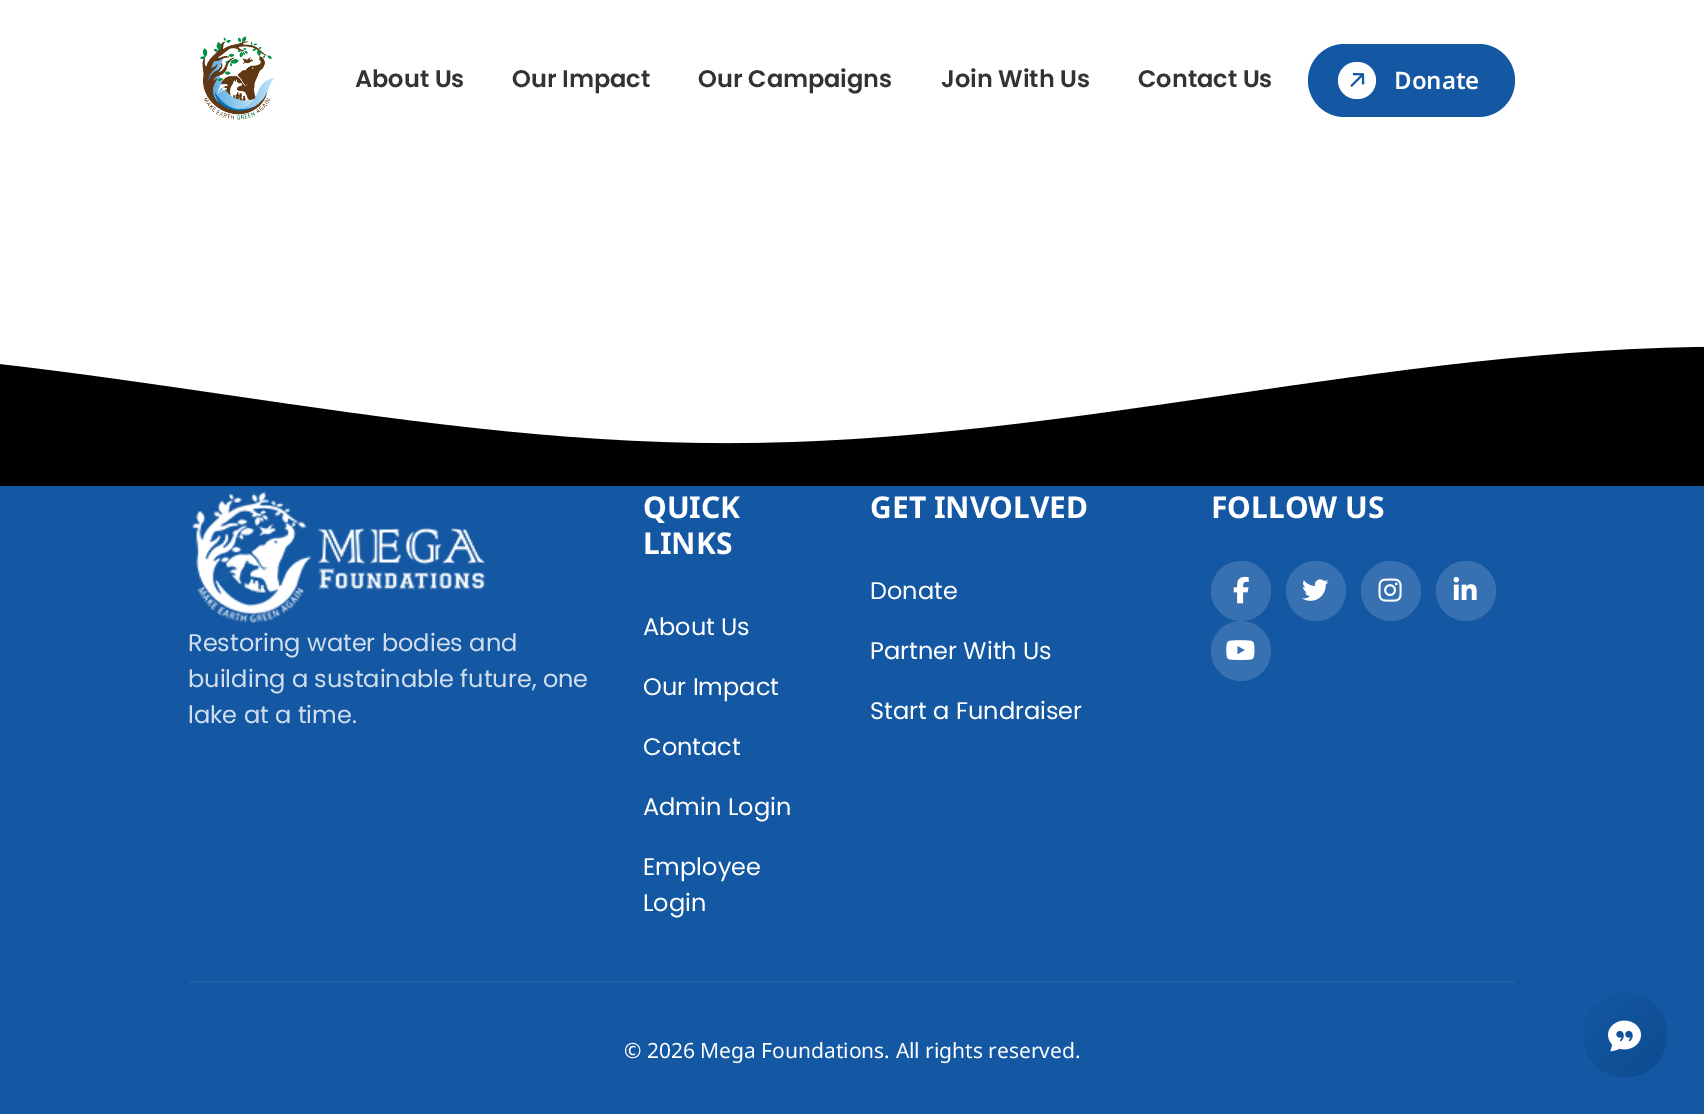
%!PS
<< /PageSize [1704 1114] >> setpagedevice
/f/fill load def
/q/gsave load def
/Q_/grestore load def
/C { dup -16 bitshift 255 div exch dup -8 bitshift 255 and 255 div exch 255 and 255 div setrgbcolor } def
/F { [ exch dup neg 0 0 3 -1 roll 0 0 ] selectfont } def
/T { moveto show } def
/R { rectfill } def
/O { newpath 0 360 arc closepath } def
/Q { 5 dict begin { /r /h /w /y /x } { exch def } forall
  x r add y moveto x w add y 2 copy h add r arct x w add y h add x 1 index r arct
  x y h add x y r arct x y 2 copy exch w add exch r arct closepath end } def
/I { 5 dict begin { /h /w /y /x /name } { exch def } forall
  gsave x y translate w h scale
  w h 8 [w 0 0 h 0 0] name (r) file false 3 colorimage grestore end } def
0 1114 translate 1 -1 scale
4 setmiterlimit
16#FFFFFF C
0 0 1704 1114 R
(1.rgb) 200 36 75 84 I
/Poppins-SemiBold 24 F
16#333333 C
(About Us) 355 87 T
(Our Impact) 512 87 T
(Our Campaigns) 698 87 T
(Join With Us) 941 87 T
(Contact Us) 1138 87 T
16#1458A3 C
1308 44 207 73 36.5 Q f
16#FFFFFF C
1338 62 38 37 18.5 Q f
(2.rgb) 1350 72 15 15 I
/NotoSans-SemiBold 24 F
(Donate) 1394 89 T
(3.rgb) 0 346 1704 140 I
16#1458A3 C
0 486 1704 628 R
/NotoSans-Bold 30 F
16#FFFFFF C
(QUICK) 643 518 T
(LINKS) 643 554 T
/Poppins-Regular 24 F
(About Us) 643 635 T
(Our Impact) 643 695 T
(Contact) 643 755 T
(Admin Login) 643 815 T
(Employee) 643 875 T
(Login) 643 911 T
/NotoSans-Bold 30 F
(GET INVOLVED) 870 518 T
/Poppins-Regular 24 F
(Donate) 870 599 T
(Partner With Us) 870 659 T
(Start a Fundraiser) 870 719 T
/NotoSans-Bold 30 F
(FOLLOW US) 1211 518 T
16#3771B1 C
1241 591 30 O f
(4.rgb) 1233 576 16 28 I
1316 591 30 O f
(5.rgb) 1302 579 27 22 I
1391 591 30 O f
(6.rgb) 1378 578 24 24 I
1466 591 30 O f
(7.rgb) 1453 576 24 24 I
1241 651 30 O f
(8.rgb) 1226 640 29 20 I
(9.rgb) 191 491 294 132 I
/Poppins-Regular 24 F
16#D0DEED C
(Restoring water bodies and) 188 651 T
(building a sustainable future, one) 188 687 T
(lake at a time.) 188 723 T
16#2060A8 C
189 981 1326 2 R
/NotoSans-Regular 21 F
16#FFFFFF C
(© 2026 Mega Foundations. All rights reserved.) 624 1058 T
q 1625 1035 42 O clip newpath
<< /ShadingType 2 /ColorSpace /DeviceRGB /Coords [1583 993 1667 1077] /Extend [true true] /Function << /FunctionType 2 /Domain [0 1] /C0 [.078 .345 .639] /C1 [.051 .294 .561] /N 1 >> >> shfill Q_
(10.rgb) 1608 1020 33 32 I
showpage
